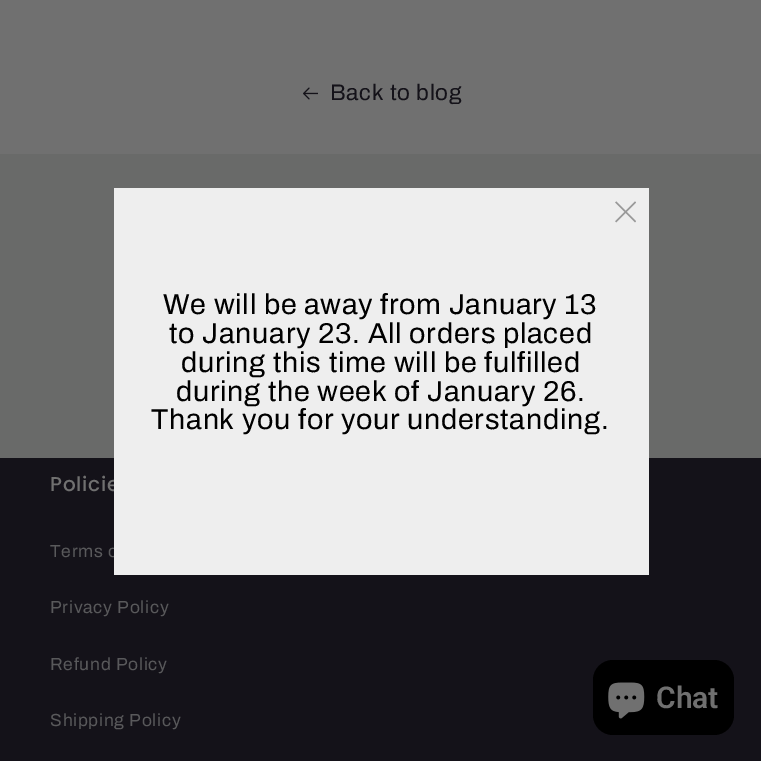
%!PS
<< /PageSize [761 761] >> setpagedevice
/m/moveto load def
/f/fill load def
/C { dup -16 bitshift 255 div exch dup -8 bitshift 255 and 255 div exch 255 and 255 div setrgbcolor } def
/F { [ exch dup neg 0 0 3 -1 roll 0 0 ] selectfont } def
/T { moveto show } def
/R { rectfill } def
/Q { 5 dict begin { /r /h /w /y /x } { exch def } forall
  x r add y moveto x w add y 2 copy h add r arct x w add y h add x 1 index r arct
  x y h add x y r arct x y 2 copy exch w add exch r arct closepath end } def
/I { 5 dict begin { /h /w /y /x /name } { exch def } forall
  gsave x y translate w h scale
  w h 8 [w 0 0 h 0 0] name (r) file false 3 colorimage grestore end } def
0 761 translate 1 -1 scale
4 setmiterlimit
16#707070 C
0 0 761 761 R
(1.rgb) 303 87 15 13 I
/Archivo-Regular 22.5 F
16#141219 C
330 100 m .75 0 (Back to blog) ashow
16#696A69 C
0 154 761 304 R
16#141219 C
0 458 761 303 R
/Poppins-Medium 20 F
16#707070 C
50 491 m .75 0 (Policie) ashow
/Archivo-Regular 17.5 F
16#59595B C
50 557 m .75 0 (Terms o) ashow
16#EEEEEE C
114 188 535 387 R
(2.rgb) 615 201 21 22 I
/Archivo-Regular 28.75 F
16#000000 C
163 314 m .75 0 (We will be away from January 13) ashow
169 343 m .75 0 (to January 23. All orders placed) ashow
181 372 m .75 0 (during this time will be fulfilled) ashow
176 401 m .75 0 (during the week of January 26.) ashow
151 429 m .75 0 (Thank you for your understanding.) ashow
/Archivo-Regular 17.5 F
16#59595B C
50 613 m .75 0 (Privacy Policy) ashow
50 670 m .75 0 (Refund Policy) ashow
50 726 m .75 0 (Shipping Policy) ashow
16#000000 C
593 660 141 75 20 Q f
(3.rgb) 608 682 37 37 I
/Roboto-SemiBold 30 F
16#707070 C
(Chat) 656 708 T
showpage
